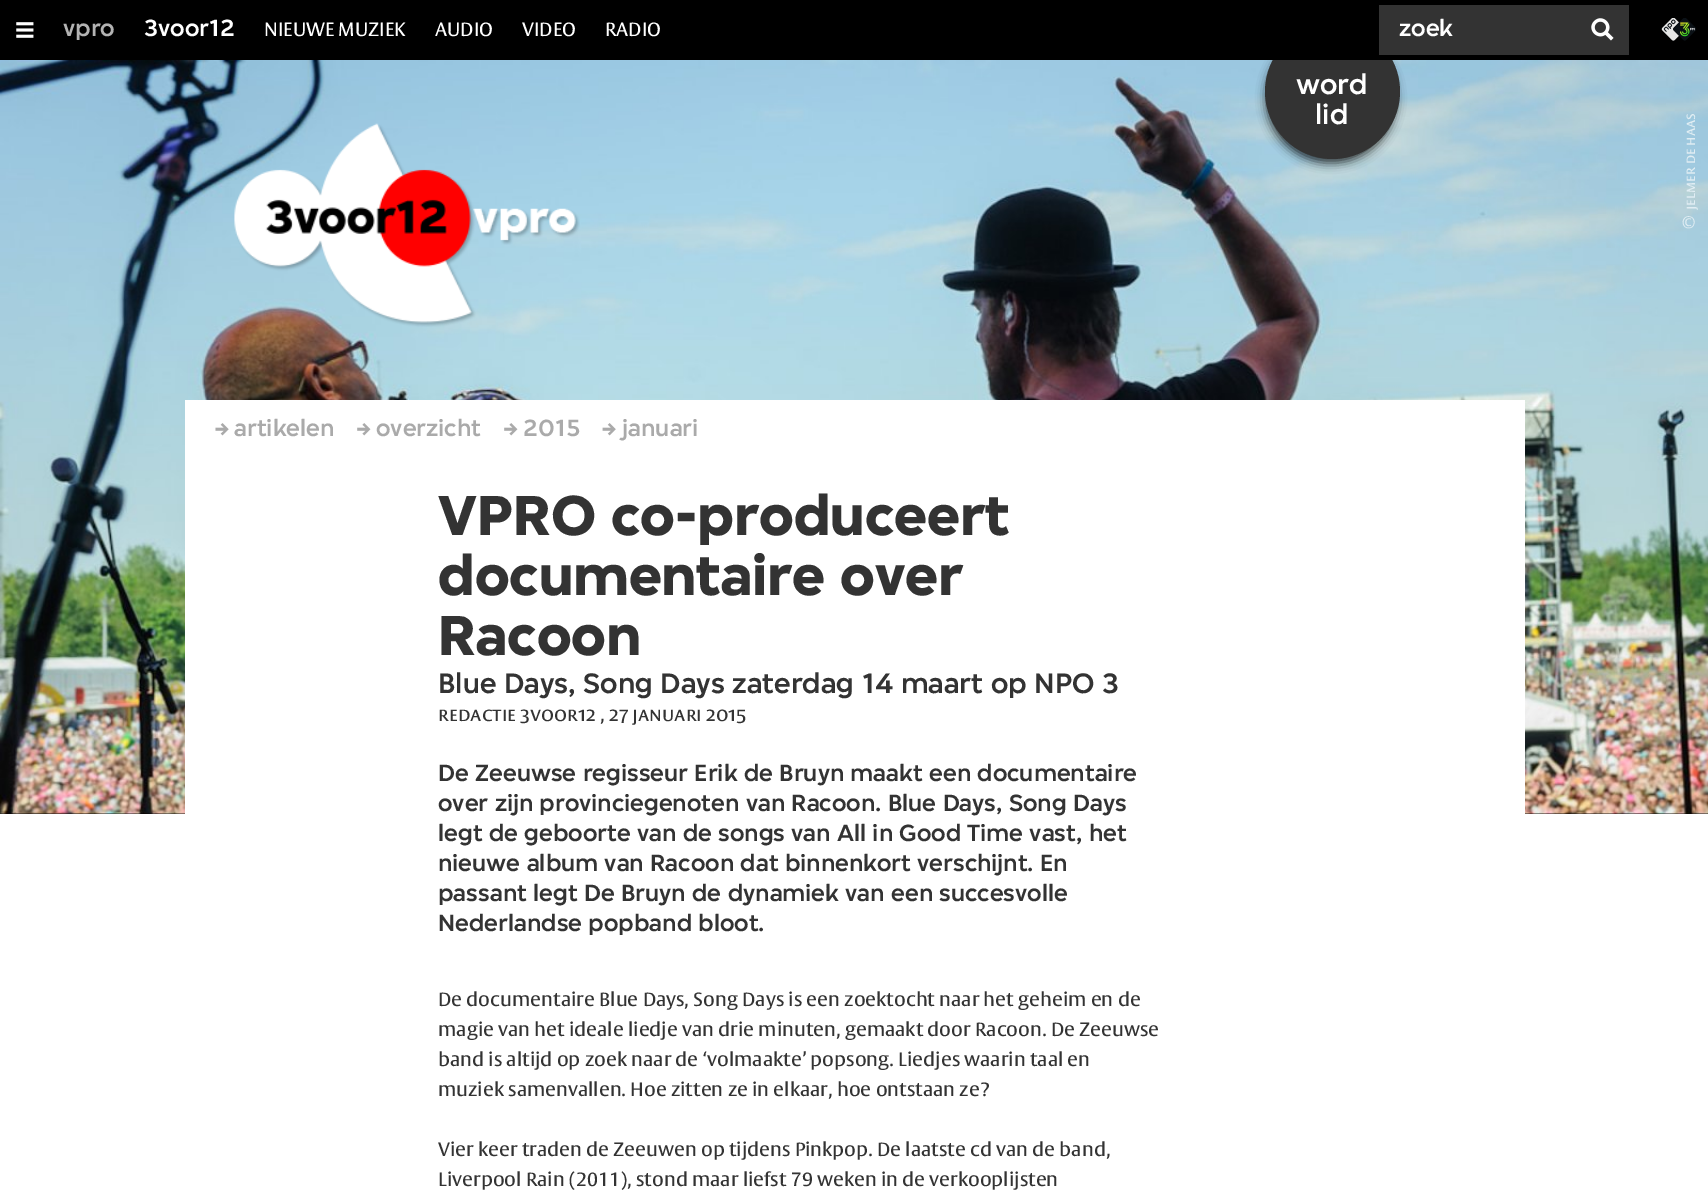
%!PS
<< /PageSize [1708 1199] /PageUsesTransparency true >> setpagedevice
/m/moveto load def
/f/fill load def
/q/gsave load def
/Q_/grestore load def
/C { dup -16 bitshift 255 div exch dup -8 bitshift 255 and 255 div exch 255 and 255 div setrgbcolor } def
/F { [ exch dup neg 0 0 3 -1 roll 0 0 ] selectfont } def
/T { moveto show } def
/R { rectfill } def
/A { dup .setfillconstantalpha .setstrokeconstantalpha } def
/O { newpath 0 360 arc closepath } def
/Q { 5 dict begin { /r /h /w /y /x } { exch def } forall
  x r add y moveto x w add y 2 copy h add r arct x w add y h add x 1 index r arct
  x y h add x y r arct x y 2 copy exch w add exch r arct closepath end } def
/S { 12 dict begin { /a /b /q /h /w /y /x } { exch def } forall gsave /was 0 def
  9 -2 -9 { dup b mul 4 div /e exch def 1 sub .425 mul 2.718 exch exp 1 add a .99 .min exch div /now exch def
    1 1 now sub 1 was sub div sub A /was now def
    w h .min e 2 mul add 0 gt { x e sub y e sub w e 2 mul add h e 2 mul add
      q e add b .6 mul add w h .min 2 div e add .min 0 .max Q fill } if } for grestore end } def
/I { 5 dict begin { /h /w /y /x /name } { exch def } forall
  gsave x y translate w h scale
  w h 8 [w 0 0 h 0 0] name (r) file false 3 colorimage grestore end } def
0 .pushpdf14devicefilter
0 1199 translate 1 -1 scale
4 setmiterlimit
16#FFFFFF C
0 0 1708 1199 R
16#000000 C
0 813 1708 1 R
(5.rgb) 0 60 1708 754 I
1266 33 130 130 65 5 .75 S
16#333333 C
1332.5 91.5 67.5 O f
16#000000 C
0 0 1708 60 R
(1.rgb) 16 22 18 16 I
/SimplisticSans-Medium 25 F
16#B3B3B3 C
(vpro) 63 36 T
16#FFFFFF C
(3voor12) 144 36 T
/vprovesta-Regular 18.75 F
(NIEUWE MUZIEK) 264 36 T
(AUDIO) 435 36 T
(VIDEO) 522 36 T
(RADIO) 605 36 T
16#333333 C
1379 5 250 50 R
/SimplisticSans-Medium 25 F
16#FFFFFF C
(zoek) 1399 36 T
(2.rgb) 1591 18 23 23 I
(3.rgb) 1661 18 35 23 I
/SimplisticSans-Medium 30 F
(word) 1296 94 T
(lid) 1315 124 T
(4.rgb) 234 123 346 204 I
/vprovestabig-Regular 13.75 F
16#E0EDF3 C
q 1695 210 translate -90 rotate 0 0 m (jelmer de haas) show Q_
(©) 1682 226 T
16#FFFFFF C
185 400 1340 414 R
(6.rgb) 215 423 14 13 I
/SimplisticSans-Medium 25 F
16#AAAAAA C
(artikelen) 234 436 T
(7.rgb) 357 423 14 13 I
(overzicht) 376 436 T
(8.rgb) 504 423 14 13 I
(2015) 523 436 T
(9.rgb) 602 423 14 13 I
(januari) 622 436 T
/SimplisticSans-Bold 60 F
16#333333 C
(VPRO co-produceert) 438 535 T
(documentaire over) 438 595 T
(Racoon) 438 655 T
/SimplisticSans-Medium 30 F
(Blue Days, Song Days zaterdag 14 maart op NPO 3) 438 693 T
/vprovestabig-Regular 18.75 F
(redactie 3voor12 , 27 januari 2015) 438 721 T
/SimplisticSans-Medium 25 F
(De Zeeuwse regisseur Erik de Bruyn maakt een documentaire) 438 781 T
(over zijn provinciegenoten van Racoon. Blue Days, Song Days) 438 811 T
(legt de geboorte van de songs van All in Good Time vast, het) 438 841 T
(nieuwe album van Racoon dat binnenkort verschijnt. En) 438 871 T
(passant legt De Bruyn de dynamiek van een succesvolle) 438 901 T
(Nederlandse popband bloot.) 438 931 T
/vprovesta-Regular 18.75 F
(De documentaire Blue Days, Song Days is een zoektocht naar het geheim en de) 438 1006 T
(magie van het ideale liedje van drie minuten, gemaakt door Racoon. De Zeeuwse) 438 1036 T
(band is altijd op zoek naar de ‘volmaakte’ popsong. Liedjes waarin taal en) 438 1066 T
(muziek samenvallen. Hoe zitten ze in elkaar, hoe ontstaan ze?) 438 1096 T
(Vier keer traden de Zeeuwen op tijdens Pinkpop. De laatste cd van de band,) 438 1156 T
(Liverpool Rain \(2011\), stond maar liefst 79 weken in de verkooplijsten) 438 1186 T
.poppdf14devicefilter showpage
